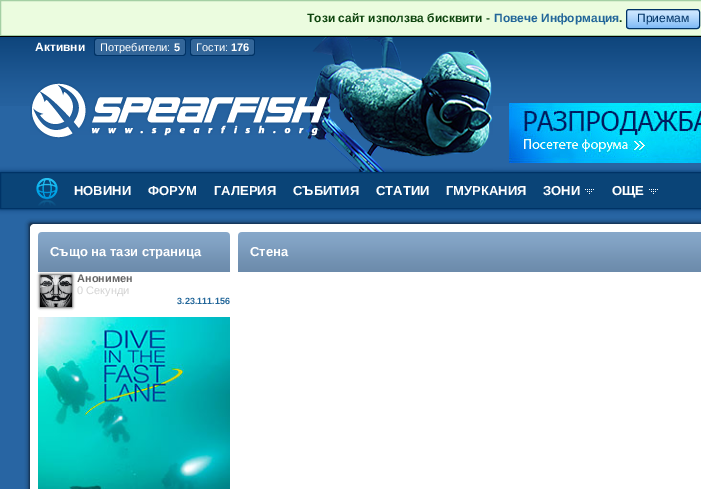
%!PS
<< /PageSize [701 489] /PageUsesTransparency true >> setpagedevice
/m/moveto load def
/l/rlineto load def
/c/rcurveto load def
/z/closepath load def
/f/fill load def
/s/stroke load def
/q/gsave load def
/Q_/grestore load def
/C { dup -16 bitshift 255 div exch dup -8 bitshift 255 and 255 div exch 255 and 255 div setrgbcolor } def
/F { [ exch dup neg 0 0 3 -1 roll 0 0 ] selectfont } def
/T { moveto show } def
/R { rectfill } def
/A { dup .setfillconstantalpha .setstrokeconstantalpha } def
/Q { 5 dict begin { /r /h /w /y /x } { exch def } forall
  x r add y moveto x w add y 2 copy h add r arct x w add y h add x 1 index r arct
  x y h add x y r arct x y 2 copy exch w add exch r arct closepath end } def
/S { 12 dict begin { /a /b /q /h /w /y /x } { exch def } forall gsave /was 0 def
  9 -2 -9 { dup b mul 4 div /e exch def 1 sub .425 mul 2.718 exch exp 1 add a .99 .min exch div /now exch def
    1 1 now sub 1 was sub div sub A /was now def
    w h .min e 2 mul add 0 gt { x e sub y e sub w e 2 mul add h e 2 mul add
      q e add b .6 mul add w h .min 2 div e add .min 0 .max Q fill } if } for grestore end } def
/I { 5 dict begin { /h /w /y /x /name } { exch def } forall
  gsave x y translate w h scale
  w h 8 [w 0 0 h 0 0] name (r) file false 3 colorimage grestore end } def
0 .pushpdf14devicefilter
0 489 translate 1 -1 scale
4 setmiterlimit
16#2865A3 C
0 0 701 489 R
16#EBFCDF C
.5 .5 m 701 0 l 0 35 l -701 0 l z q f Q_
16#A4CFA4 C
s
/LiberationSans-Bold 12 F
16#0E440E C
(Този сайт използва бисквити -) 307 22 T
16#226699 C
(Повече Информация) 494 22 T
(1.rgb) 626 9 74 20 I
16#0E440E C
(.) 619 22 T
16#003366 C
626.5 9.5 73 19 2.5 Q s
/LiberationSans-Regular 12 F
(Приемам) 637 22 T
(2.rgb) 0 37 701 69 I
16#000000 C
0 36 701 1 R
16#003366 C
0 172 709 37 0 2.5 1 S
(3.rgb) 30 37 463 135 I
/LiberationSans-Bold 12 F
16#FFFFFF C
(Активни) 35 51 T
16#336699 C
97 38 m 77 0 l 0 18 l -77 0 l -1.5 0 -3 -1.5 -3 -3 c 0 -12 l 0 -1.5 1.5 -3 3 -3 c z f
16#003366 C
97 38 m 77 0 l 0 18 l -77 0 l -2 0 -3 -1 -3 -3 c 0 -12 l 0 -2 1 -3 3 -3 c z 97 39 m 77 0 l 0 16 l -77 0 l -1 0 -2 -1 -2 -2 c 0 -12 l 0 -1 1 -2 2 -2 c z eofill
/LiberationSans-Regular 11 F
16#FFFFFF C
(Потребители:) 100 51 T
16#336699 C
174 38 m 9 0 l 1.5 0 3 1.5 3 3 c 0 12 l 0 1.5 -1.5 3 -3 3 c -9 0 l z f
16#003366 C
174 38 m 9 0 l 1.5 0 3 1.5 3 3 c 0 12 l 0 1.5 -1.5 3 -3 3 c -9 0 l z 174 39 m 9 0 l 1 0 2 1 2 2 c 0 12 l 0 1 -1 2 -2 2 c -9 0 l z eofill
/LiberationSans-Bold 11 F
16#FFFFFF C
(5) 174 51 T
16#336699 C
193 38 m 38 0 l 0 18 l -38 0 l -1.5 0 -3 -1.5 -3 -3 c 0 -12 l 0 -1.5 1.5 -3 3 -3 c z f
16#003366 C
193 38 m 38 0 l 0 18 l -38 0 l -2 0 -3 -1 -3 -3 c 0 -12 l 0 -2 1 -3 3 -3 c z 193 39 m 38 0 l 0 16 l -38 0 l -1 0 -2 -1 -2 -2 c 0 -12 l 0 -1 1 -2 2 -2 c z eofill
/LiberationSans-Regular 11 F
16#FFFFFF C
(Гости:) 196 51 T
16#336699 C
231 38 m 21 0 l 1.5 0 3 1.5 3 3 c 0 12 l 0 1.5 -1.5 3 -3 3 c -21 0 l z f
16#003366 C
231 38 m 21 0 l 1.5 0 3 1.5 3 3 c 0 12 l 0 1.5 -1.5 3 -3 3 c -21 0 l z 231 39 m 17.5 0 l 7 0 5.5 1 5.5 8 c 0 7 1.5 8 -5.5 8 c -17.5 0 l z eofill
/LiberationSans-Bold 11 F
16#FFFFFF C
(176) 231 51 T
(4.rgb) 509 103 192 60 I
16#0A4477 C
.5 172.5 m 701 0 l 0 36 l -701 0 l z q f Q_
16#003366 C
s
(5.rgb) 36 178 22 28 I
/LiberationSans-Bold 13 F
16#FFFFFF C
(НОВИНИ) 74 195 T
(ФОРУМ) 148 195 T
(ГАЛЕРИЯ) 214 195 T
(СЪБИТИЯ) 293 195 T
(СТАТИИ) 376 195 T
(ГМУРКАНИЯ) 446 195 T
(ЗОНИ) 543 195 T
(6.rgb) 585 189 9 5 I
(ОЩЕ) 612 195 T
(6.rgb) 649 189 9 5 I
16#000000 C
30 224 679 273 0 2.5 1 S
16#FFFFFF C
34 224 m 667 0 l 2 0 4 2 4 4 c 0 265 l -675 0 l 0 -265 l 0 -2 2 -4 4 -4 c z f
(7.rgb) 38 232 192 40 I
(Също на тази страница) 50 256 T
16#000000 C
40 275 32 32 0 1.5 1 S
(8.rgb) 40 275 32 32 I
/LiberationSans-Bold 11 F
16#666666 C
(Анонимен) 77 282 T
/LiberationSans-Regular 11 F
16#D3D3D3 C
(0 Секунди) 77 294 T
/LiberationSans-Bold 9 F
16#226699 C
(3.23.111.156) 177 304 T
(9.rgb) 38 317 192 172 I
(10.rgb) 238 232 463 40 I
/LiberationSans-Bold 13 F
16#FFFFFF C
(Стена) 250 256 T
.poppdf14devicefilter showpage
